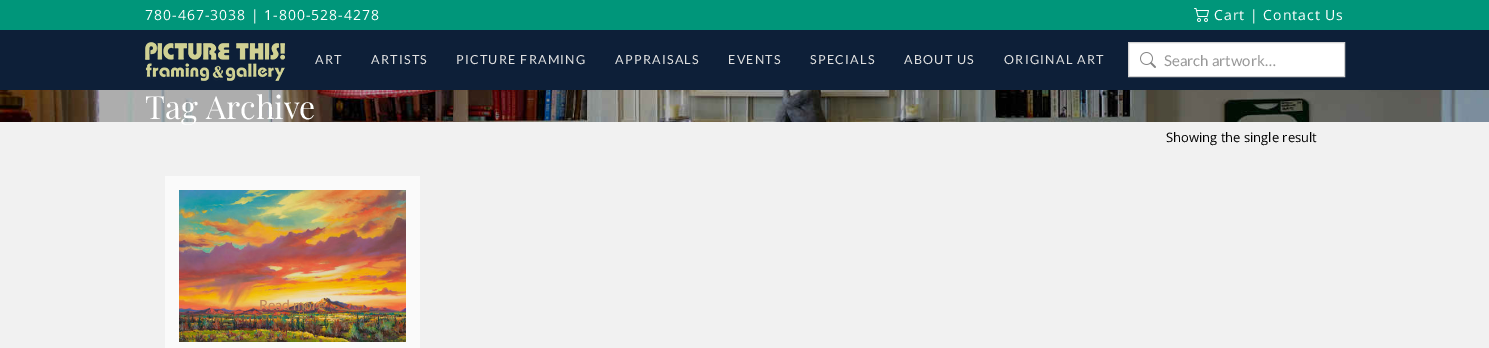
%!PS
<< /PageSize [1489 348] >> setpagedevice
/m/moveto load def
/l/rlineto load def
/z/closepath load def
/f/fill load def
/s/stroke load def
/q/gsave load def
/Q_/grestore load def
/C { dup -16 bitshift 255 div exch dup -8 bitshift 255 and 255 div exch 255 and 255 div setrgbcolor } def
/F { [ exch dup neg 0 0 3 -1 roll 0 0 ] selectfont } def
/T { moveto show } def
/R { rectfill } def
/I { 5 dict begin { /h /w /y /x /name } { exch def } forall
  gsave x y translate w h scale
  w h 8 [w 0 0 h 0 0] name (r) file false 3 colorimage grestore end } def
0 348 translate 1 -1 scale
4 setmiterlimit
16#F1F1F1 C
0 0 1489 348 R
16#00967A C
0 0 1489 30 R
/OpenSans-Regular 14 F
16#FFFFFF C
145 20 m 1 0 (780-467-3038 | 1-800-528-4278) ashow
(1.rgb) 1194 8 15 14 I
1214 20 m 1 0 (Cart | Contact Us) ashow
16#0D1F38 C
0 30 1489 60 R
(2.rgb) 145 42 140 39 I
/Lato-Regular 12.5 F
16#E0E0E0 C
315 64 m 1.25 0 (ART) ashow
371 64 m 1.25 0 (ARTISTS) ashow
456 64 m 1.25 0 (PICTURE FRAMING) ashow
615 64 m 1.25 0 (APPRAISALS) ashow
728 64 m 1.25 0 (EVENTS) ashow
810 64 m 1.25 0 (SPECIALS) ashow
904 64 m 1.25 0 (ABOUT US) ashow
1004 64 m 1.25 0 (ORIGINAL ART) ashow
16#FFFFFF C
1128.5 42.5 m 216 0 l 0 34 l -216 0 l z q f Q_
16#D2D2D2 C
s
(3.rgb) 1140 52 16 16 I
/Lato-Regular 15 F
16#999999 C
(Search artwork…) 1164 66 T
(4.rgb) 0 90 1489 32 I
/PlayfairDisplay-Regular 32 F
16#FFFFFF C
(Tag Archive) 145 119 T
/OpenSans-Regular 13 F
16#000000 C
(Showing the single result) 1166 142 T
16#FAFAFA C
165 176 255 172 R
(5.rgb) 179 190 227 152 I
/Lato-Regular 14 F
16#BC845A C
(Read more) 259 310 T
showpage
